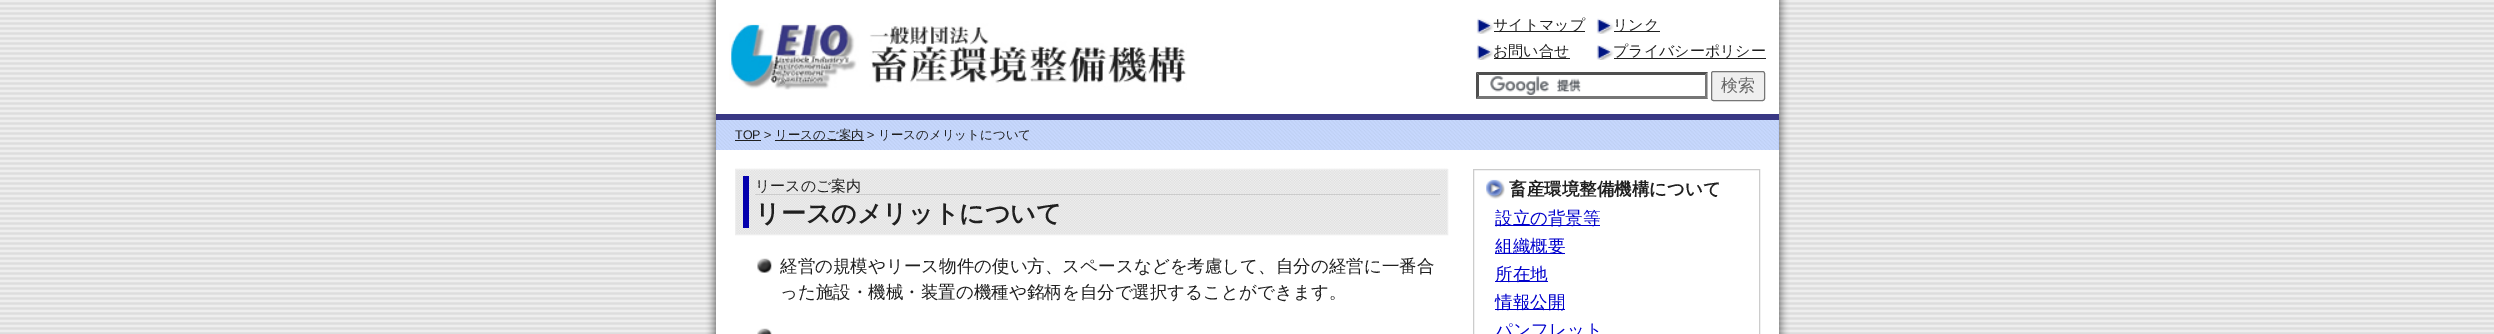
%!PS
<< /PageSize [2494 334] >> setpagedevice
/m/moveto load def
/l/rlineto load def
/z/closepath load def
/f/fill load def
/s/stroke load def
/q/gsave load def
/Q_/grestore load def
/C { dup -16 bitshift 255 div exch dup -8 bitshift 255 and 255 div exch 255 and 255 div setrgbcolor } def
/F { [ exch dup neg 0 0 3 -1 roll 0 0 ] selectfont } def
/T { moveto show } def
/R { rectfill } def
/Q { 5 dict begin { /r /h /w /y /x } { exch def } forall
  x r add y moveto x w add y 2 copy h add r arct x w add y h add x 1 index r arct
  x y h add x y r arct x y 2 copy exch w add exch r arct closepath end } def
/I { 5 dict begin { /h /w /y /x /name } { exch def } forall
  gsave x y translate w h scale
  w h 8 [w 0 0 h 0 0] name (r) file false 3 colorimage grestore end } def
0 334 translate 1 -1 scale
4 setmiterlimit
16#FFFFFF C
0 0 2494 334 R
(1.rgb) 0 0 2494 334 I
716 0 1063 334 R
16#393884 C
716 114 1063 6 R
(2.rgb) 729 23 458 67 I
(3.rgb) 1476 18 18 16 I
16#202020 C
1494 31 91 1 R
/WenQuanYiZenHei-Medium 15 F
(サイトマップ) 1493 30 T
(3.rgb) 1596 18 18 16 I
1614 31 46 1 R
(リンク) 1613 30 T
(4.rgb) 1476 45 18 15 I
1494 58 76 1 R
(お問い合せ) 1493 56 T
(4.rgb) 1596 45 18 15 I
1614 58 152 1 R
(プライバシーポリシー) 1613 56 T
(5.rgb) 1490 76 91 19 I
16#4F4F4F C
1476 72 m 232 0 l -3 3 l -226 0 l z f
16#767676 C
1707.5 72.5 m 0 26.5 l -2.5 -3 l 0 -21 l z f
1708 99 m -232 0 l 3 -3 l 226 0 l z f
16#4F4F4F C
1476 99 m 0 -26.5 l 3 2.5 l 0 21 l z f
16#EFEFEF C
1711.5 71.5 53 29 2 Q q f Q_
16#767676 C
s
/WenQuanYiZenHei-Medium 17 F
16#666666 C
(検索) 1721 91 T
(6.rgb) 716 120 1063 30 I
/LiberationSans-Regular 12.5 F
16#202020 C
(TOP >) 735 139 T
735 140 26 1 R
775 140 89 1 R
/WenQuanYiZenHei-Medium 12.5 F
(リースのご案内) 775 139 T
/LiberationSans-Regular 12.5 F
(>) 867 139 T
/WenQuanYiZenHei-Medium 12.5 F
(リースのメリットについて) 878 139 T
(7.rgb) 735 168 713 66 I
16#EEEEEE C
735.5 169.5 712 65 rectstroke
16#0400AE C
743 176 6 52 R
16#CCCCCC C
755 194 685 1 R
/WenQuanYiZenHei-Medium 15 F
16#202020 C
(リースのご案内) 755 191 T
/WenQuanYiZenHei-Bold 25 F
(リースのメリットについて) 755 222 T
(8.rgb) 757 258 15 15 I
/WenQuanYiZenHei-Medium 17.5 F
(経営の規模やリース物件の使い方、スペースなどを考慮して、自分の経営に一番合) 780 272 T
(った施設・機械・装置の機種や銘柄を自分で選択することができます。) 780 298 T
(9.rgb) 757 328 15 6 I
16#CCCCCC C
1473.5 169.5 286 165 rectstroke
(10.rgb) 1486 179 19 20 I
/WenQuanYiZenHei-Bold 17.5 F
16#202020 C
(畜産環境整備機構について) 1509 195 T
16#0000CC C
1495 225 105 1 R
/WenQuanYiZenHei-Medium 17.5 F
(設立の背景等) 1495 224 T
1495 253 70 1 R
(組織概要) 1495 252 T
1495 281 53 1 R
(所在地) 1495 280 T
1495 309 70 1 R
(情報公開) 1495 308 T
(パンフレット) 1495 336 T
showpage
